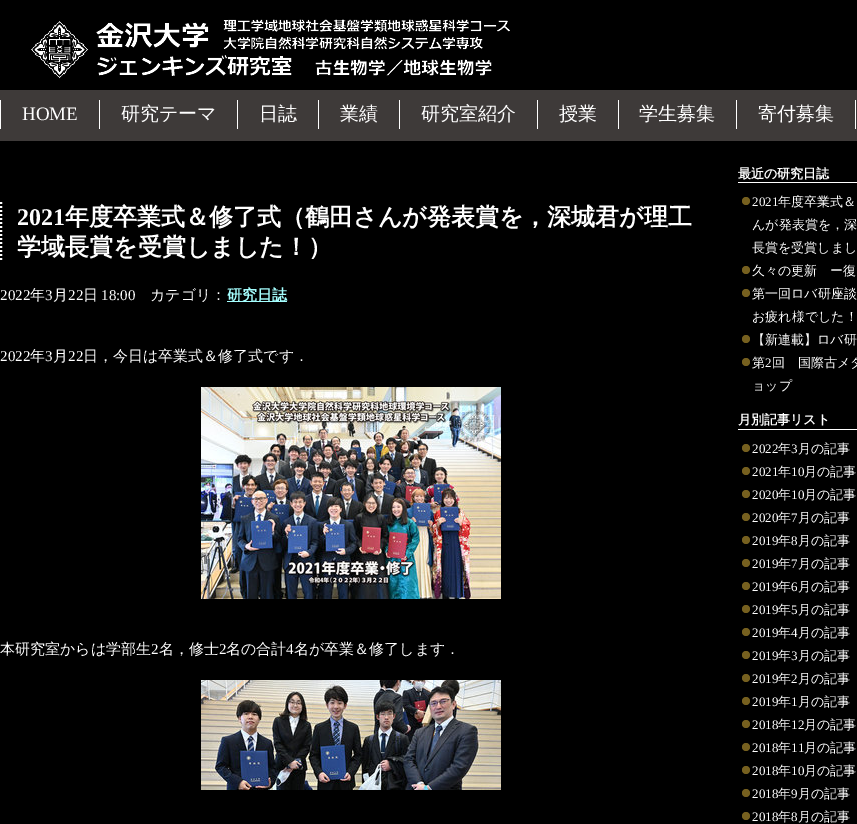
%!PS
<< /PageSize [857 824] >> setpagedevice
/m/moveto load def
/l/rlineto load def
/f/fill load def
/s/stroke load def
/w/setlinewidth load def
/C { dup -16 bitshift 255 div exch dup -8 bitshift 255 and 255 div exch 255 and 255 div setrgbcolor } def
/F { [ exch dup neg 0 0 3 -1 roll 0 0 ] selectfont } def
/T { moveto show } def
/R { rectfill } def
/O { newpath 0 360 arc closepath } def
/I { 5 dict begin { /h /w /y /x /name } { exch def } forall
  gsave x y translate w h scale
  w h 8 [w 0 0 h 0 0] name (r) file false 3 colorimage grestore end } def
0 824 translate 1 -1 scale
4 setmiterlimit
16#000000 C
0 0 857 824 R
(1.rgb) 31 19 479 60 I
16#3E3A39 C
0 90 857 51 R
16#FFFFFF C
0 100 1 29 R
/LiberationSerif-Regular 19 F
(HOME) 22 120 T
99 100 1 29 R
/WenQuanYiZenHei-Medium 19 F
(研究テーマ) 121 120 T
237 100 1 29 R
(日誌) 259 120 T
318 100 1 29 R
(業績) 340 120 T
399 100 1 29 R
(研究室紹介) 421 120 T
537 100 1 29 R
(授業) 559 120 T
618 100 1 29 R
(学生募集) 639 120 T
736 100 1 29 R
(寄付募集) 758 120 T
855 100 1 29 R
2 w
[2 2] 0 setdash
1 202 m 0 60 l s
/LiberationSerif-Bold 24 F
(2021) 17 225 T
/WenQuanYiZenHei-Bold 24 F
(年度卒業式＆修了式（鶴田さんが発表賞を，深城君が理工) 65 225 T
(学域長賞を受賞しました！）) 17 255 T
/LiberationSerif-Regular 15 F
(2022) 0 300 T
/WenQuanYiZenHei-Medium 15 F
(年) 30 300 T
/LiberationSerif-Regular 15 F
(3) 45 300 T
/WenQuanYiZenHei-Medium 15 F
(月) 53 300 T
/LiberationSerif-Regular 15 F
(22) 68 300 T
/WenQuanYiZenHei-Medium 15 F
(日) 83 300 T
/LiberationSerif-Regular 15 F
(18:00) 101 300 T
/WenQuanYiZenHei-Medium 15 F
(カテゴリ：) 150 300 T
16#A5FFFF C
227 301 60 1 R
/WenQuanYiZenHei-Bold 15 F
(研究日誌) 227 300 T
/LiberationSerif-Regular 15 F
16#FFFFFF C
(2022) 0 361 T
/WenQuanYiZenHei-Medium 15 F
(年) 30 361 T
/LiberationSerif-Regular 15 F
(3) 45 361 T
/WenQuanYiZenHei-Medium 15 F
(月) 53 361 T
/LiberationSerif-Regular 15 F
(22) 68 361 T
/WenQuanYiZenHei-Medium 15 F
(日，今日は卒業式＆修了式です．) 83 361 T
(2.rgb) 201 387 300 212 I
(本研究室からは学部生) 0 654 T
/LiberationSerif-Regular 15 F
(2) 151 654 T
/WenQuanYiZenHei-Medium 15 F
(名，修士) 159 654 T
/LiberationSerif-Regular 15 F
(2) 219 654 T
/WenQuanYiZenHei-Medium 15 F
(名の合計) 226 654 T
/LiberationSerif-Regular 15 F
(4) 286 654 T
/WenQuanYiZenHei-Medium 15 F
(名が卒業＆修了します．) 294 654 T
(3.rgb) 201 680 300 110 I
738 182 119 1 R
/WenQuanYiZenHei-Bold 13 F
(最近の研究日誌) 738 178 T
16#76601F C
746 201 4 O f
/LiberationSerif-Regular 13 F
16#FFFFFF C
(2021) 752 206 T
/WenQuanYiZenHei-Medium 13 F
(年度卒業式＆) 778 206 T
(んが発表賞を，深) 752 229 T
(長賞を受賞しまし) 752 252 T
16#76601F C
746 270 4 O f
16#FFFFFF C
(久々の更新　ー復) 752 275 T
16#76601F C
746 293 4 O f
16#FFFFFF C
(第一回ロバ研座談) 752 298 T
(お疲れ様でした！) 752 321 T
16#76601F C
746 339 4 O f
16#FFFFFF C
(【新連載】ロバ研) 752 344 T
16#76601F C
746 362 4 O f
16#FFFFFF C
(第) 752 367 T
/LiberationSerif-Regular 13 F
(2) 765 367 T
/WenQuanYiZenHei-Medium 13 F
(回　国際古メタ) 772 367 T
(ョップ) 752 390 T
738 429 119 1 R
/WenQuanYiZenHei-Bold 13 F
(月別記事リスト) 738 424 T
16#76601F C
746 448 4 O f
/LiberationSerif-Regular 13 F
16#FFFFFF C
(2022) 752 453 T
/WenQuanYiZenHei-Medium 13 F
(年) 778 453 T
/LiberationSerif-Regular 13 F
(3) 791 453 T
/WenQuanYiZenHei-Medium 13 F
(月の記事) 798 453 T
16#76601F C
746 471 4 O f
/LiberationSerif-Regular 13 F
16#FFFFFF C
(2021) 752 476 T
/WenQuanYiZenHei-Medium 13 F
(年) 778 476 T
/LiberationSerif-Regular 13 F
(10) 791 476 T
/WenQuanYiZenHei-Medium 13 F
(月の記事) 804 476 T
16#76601F C
746 494 4 O f
/LiberationSerif-Regular 13 F
16#FFFFFF C
(2020) 752 499 T
/WenQuanYiZenHei-Medium 13 F
(年) 778 499 T
/LiberationSerif-Regular 13 F
(10) 791 499 T
/WenQuanYiZenHei-Medium 13 F
(月の記事) 804 499 T
16#76601F C
746 517 4 O f
/LiberationSerif-Regular 13 F
16#FFFFFF C
(2020) 752 522 T
/WenQuanYiZenHei-Medium 13 F
(年) 778 522 T
/LiberationSerif-Regular 13 F
(7) 791 522 T
/WenQuanYiZenHei-Medium 13 F
(月の記事) 798 522 T
16#76601F C
746 540 4 O f
/LiberationSerif-Regular 13 F
16#FFFFFF C
(2019) 752 545 T
/WenQuanYiZenHei-Medium 13 F
(年) 778 545 T
/LiberationSerif-Regular 13 F
(8) 791 545 T
/WenQuanYiZenHei-Medium 13 F
(月の記事) 798 545 T
16#76601F C
746 563 4 O f
/LiberationSerif-Regular 13 F
16#FFFFFF C
(2019) 752 568 T
/WenQuanYiZenHei-Medium 13 F
(年) 778 568 T
/LiberationSerif-Regular 13 F
(7) 791 568 T
/WenQuanYiZenHei-Medium 13 F
(月の記事) 798 568 T
16#76601F C
746 586 4 O f
/LiberationSerif-Regular 13 F
16#FFFFFF C
(2019) 752 591 T
/WenQuanYiZenHei-Medium 13 F
(年) 778 591 T
/LiberationSerif-Regular 13 F
(6) 791 591 T
/WenQuanYiZenHei-Medium 13 F
(月の記事) 798 591 T
16#76601F C
746 609 4 O f
/LiberationSerif-Regular 13 F
16#FFFFFF C
(2019) 752 614 T
/WenQuanYiZenHei-Medium 13 F
(年) 778 614 T
/LiberationSerif-Regular 13 F
(5) 791 614 T
/WenQuanYiZenHei-Medium 13 F
(月の記事) 798 614 T
16#76601F C
746 632 4 O f
/LiberationSerif-Regular 13 F
16#FFFFFF C
(2019) 752 637 T
/WenQuanYiZenHei-Medium 13 F
(年) 778 637 T
/LiberationSerif-Regular 13 F
(4) 791 637 T
/WenQuanYiZenHei-Medium 13 F
(月の記事) 798 637 T
16#76601F C
746 655 4 O f
/LiberationSerif-Regular 13 F
16#FFFFFF C
(2019) 752 660 T
/WenQuanYiZenHei-Medium 13 F
(年) 778 660 T
/LiberationSerif-Regular 13 F
(3) 791 660 T
/WenQuanYiZenHei-Medium 13 F
(月の記事) 798 660 T
16#76601F C
746 678 4 O f
/LiberationSerif-Regular 13 F
16#FFFFFF C
(2019) 752 683 T
/WenQuanYiZenHei-Medium 13 F
(年) 778 683 T
/LiberationSerif-Regular 13 F
(2) 791 683 T
/WenQuanYiZenHei-Medium 13 F
(月の記事) 798 683 T
16#76601F C
746 701 4 O f
/LiberationSerif-Regular 13 F
16#FFFFFF C
(2019) 752 706 T
/WenQuanYiZenHei-Medium 13 F
(年) 778 706 T
/LiberationSerif-Regular 13 F
(1) 791 706 T
/WenQuanYiZenHei-Medium 13 F
(月の記事) 798 706 T
16#76601F C
746 724 4 O f
/LiberationSerif-Regular 13 F
16#FFFFFF C
(2018) 752 729 T
/WenQuanYiZenHei-Medium 13 F
(年) 778 729 T
/LiberationSerif-Regular 13 F
(12) 791 729 T
/WenQuanYiZenHei-Medium 13 F
(月の記事) 804 729 T
16#76601F C
746 747 4 O f
/LiberationSerif-Regular 13 F
16#FFFFFF C
(2018) 752 752 T
/WenQuanYiZenHei-Medium 13 F
(年) 778 752 T
/LiberationSerif-Regular 13 F
(11) 791 752 T
/WenQuanYiZenHei-Medium 13 F
(月の記事) 804 752 T
16#76601F C
746 770 4 O f
/LiberationSerif-Regular 13 F
16#FFFFFF C
(2018) 752 775 T
/WenQuanYiZenHei-Medium 13 F
(年) 778 775 T
/LiberationSerif-Regular 13 F
(10) 791 775 T
/WenQuanYiZenHei-Medium 13 F
(月の記事) 804 775 T
16#76601F C
746 793 4 O f
/LiberationSerif-Regular 13 F
16#FFFFFF C
(2018) 752 798 T
/WenQuanYiZenHei-Medium 13 F
(年) 778 798 T
/LiberationSerif-Regular 13 F
(9) 791 798 T
/WenQuanYiZenHei-Medium 13 F
(月の記事) 798 798 T
16#76601F C
746 816 4 O f
/LiberationSerif-Regular 13 F
16#FFFFFF C
(2018) 752 821 T
/WenQuanYiZenHei-Medium 13 F
(年) 778 821 T
/LiberationSerif-Regular 13 F
(8) 791 821 T
/WenQuanYiZenHei-Medium 13 F
(月の記事) 798 821 T
showpage
